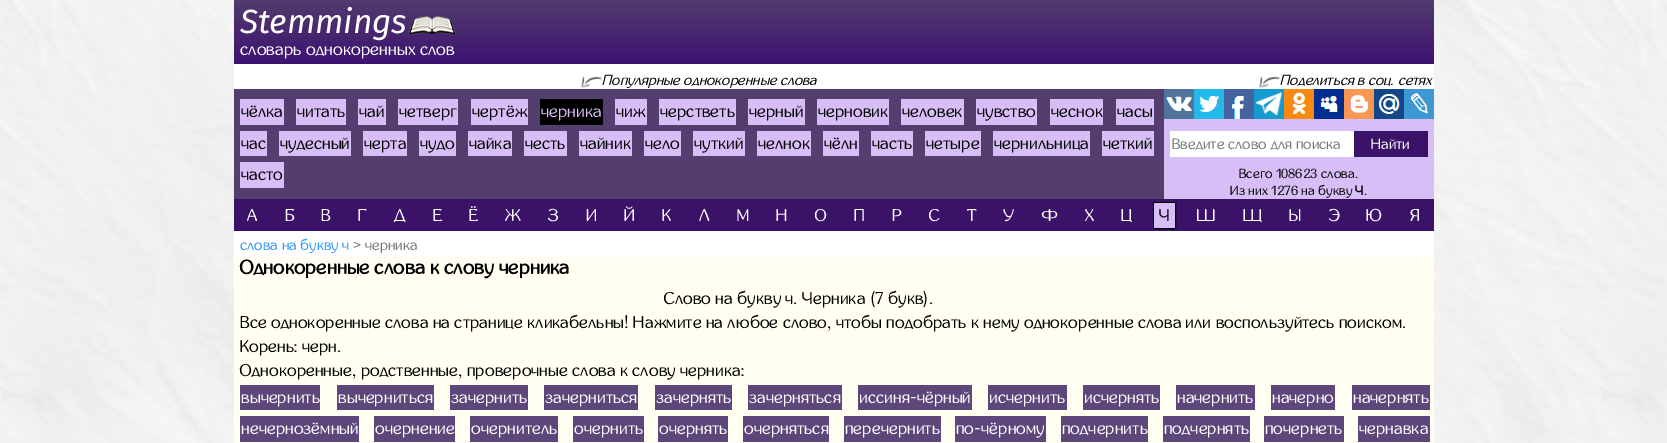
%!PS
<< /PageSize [1667 443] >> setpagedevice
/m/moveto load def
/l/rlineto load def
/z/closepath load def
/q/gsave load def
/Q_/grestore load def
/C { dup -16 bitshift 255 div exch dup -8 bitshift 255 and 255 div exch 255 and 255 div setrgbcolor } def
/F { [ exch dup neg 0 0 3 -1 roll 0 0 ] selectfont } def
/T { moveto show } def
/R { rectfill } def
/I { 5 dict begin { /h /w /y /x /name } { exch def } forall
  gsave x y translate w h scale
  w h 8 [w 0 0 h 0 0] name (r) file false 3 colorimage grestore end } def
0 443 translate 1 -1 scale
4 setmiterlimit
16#FFFFFF C
0 0 1667 443 R
(1.rgb) 0 0 1667 443 I
234 64 1200 193 R
q 234 0 m 1200 0 l 0 64 l -1200 0 l z clip newpath
<< /ShadingType 2 /ColorSpace /DeviceRGB /Coords [834 64 834 0] /Extend [true true] /Function << /FunctionType 2 /Domain [0 1] /C0 [.239 .071 .443] /C1 [.322 .231 .427] /N 1 >> >> shfill Q_
(2.rgb) 240 6 216 35 I
/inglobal-Regular 17.25 F
(словарь однокоренных слов) 240 55 T
(3.rgb) 581 76 21 12 I
/inglobal-Italic 14.5 F
16#000000 C
(Популярные однокоренные слова) 602 85 T
(3.rgb) 1259 76 21 12 I
(Поделиться в соц. сетях) 1280 85 T
16#533E6D C
234 89 930 110 R
16#D7BEF6 C
240 99 44 26 R
/inglobal-Regular 17.12 F
16#000000 C
(чёлка) 241 117 T
16#D7BEF6 C
296 99 50 26 R
16#000000 C
(читать) 297 117 T
16#D7BEF6 C
358 99 28 26 R
16#000000 C
(чай) 359 117 T
16#D7BEF6 C
398 99 60 26 R
16#000000 C
(четверг) 399 117 T
16#D7BEF6 C
471 99 57 26 R
16#000000 C
(чертёж) 472 117 T
540 99 63 26 R
16#D7BEF6 C
(черника) 541 117 T
615 99 32 26 R
16#000000 C
(чиж) 616 117 T
16#D7BEF6 C
659 99 77 26 R
16#000000 C
(черстветь) 660 117 T
16#D7BEF6 C
748 99 57 26 R
16#000000 C
(черный) 749 117 T
16#D7BEF6 C
817 99 72 26 R
16#000000 C
(черновик) 818 117 T
16#D7BEF6 C
901 99 63 26 R
16#000000 C
(человек) 902 117 T
16#D7BEF6 C
976 99 61 26 R
16#000000 C
(чувство) 977 117 T
16#D7BEF6 C
1050 99 53 26 R
16#000000 C
(чеснок) 1051 117 T
16#D7BEF6 C
1116 99 38 26 R
16#000000 C
(часы) 1117 117 T
16#D7BEF6 C
240 131 27 25 R
16#000000 C
(час) 241 149 T
16#D7BEF6 C
279 131 72 25 R
16#000000 C
(чудесный) 280 149 T
16#D7BEF6 C
363 131 44 25 R
16#000000 C
(черта) 364 149 T
16#D7BEF6 C
419 131 37 25 R
16#000000 C
(чудо) 420 149 T
16#D7BEF6 C
468 131 44 25 R
16#000000 C
(чайка) 469 149 T
16#D7BEF6 C
524 131 43 25 R
16#000000 C
(честь) 525 149 T
16#D7BEF6 C
579 131 53 25 R
16#000000 C
(чайник) 580 149 T
16#D7BEF6 C
644 131 37 25 R
16#000000 C
(чело) 645 149 T
16#D7BEF6 C
693 131 52 25 R
16#000000 C
(чуткий) 694 149 T
16#D7BEF6 C
757 131 54 25 R
16#000000 C
(челнок) 758 149 T
16#D7BEF6 C
823 131 36 25 R
16#000000 C
(чёлн) 824 149 T
16#D7BEF6 C
871 131 42 25 R
16#000000 C
(часть) 872 149 T
16#D7BEF6 C
925 131 56 25 R
16#000000 C
(четыре) 926 149 T
16#D7BEF6 C
993 131 97 25 R
16#000000 C
(чернильница) 994 149 T
16#D7BEF6 C
1102 131 52 25 R
16#000000 C
(четкий) 1103 149 T
16#D7BEF6 C
240 162 44 26 R
16#000000 C
(часто) 241 180 T
16#D7BEF6 C
1164 119 270 80 R
(4.rgb) 1164 89 30 30 I
(5.rgb) 1194 89 30 30 I
(6.rgb) 1224 89 30 30 I
16#139BD0 C
1254 89 30 30 R
(7.rgb) 1255 89 28 27 I
(8.rgb) 1284 89 30 30 I
(9.rgb) 1314 89 30 30 I
(10.rgb) 1344 89 30 30 I
(11.rgb) 1374 89 30 30 I
(12.rgb) 1404 89 30 30 I
16#FFFFFF C
1170 131 184 26 R
/inglobal-Regular 14.9 F
16#797979 C
(Введите слово для поиска) 1172 149 T
16#3A1369 C
1354 131 74 26 R
16#FFFFFF C
(Найти) 1371 149 T
/inglobal-Regular 13.25 F
16#000000 C
(Всего 108623 слова.) 1239 178 T
(Из них 1276 на букву) 1230 195 T
/inglobal-Bold 13.25 F
(Ч) 1355 195 T
/inglobal-Regular 13.25 F
(.) 1364 195 T
16#3A1369 C
234 199 1200 32 R
/inglobal-Regular 17.12 F
16#FFFFFF C
(А) 247 221 T
(Б) 285 221 T
(В) 321 221 T
(Г) 358 221 T
(Д) 394 221 T
(Е) 433 221 T
(Ё) 469 221 T
(Ж) 505 221 T
(З) 548 221 T
(И) 586 221 T
(Й) 624 221 T
(К) 662 221 T
(Л) 699 221 T
(М) 737 221 T
(Н) 776 221 T
(О) 815 221 T
(П) 854 221 T
(Р) 892 221 T
(С) 929 221 T
(Т) 967 221 T
(У) 1003 221 T
(Ф) 1042 221 T
(Х) 1085 221 T
(Ц) 1121 221 T
16#000000 C
1153.5 202.5 22 26 rectstroke
16#D7BEF6 C
1154 203 21 25 R
16#000000 C
(Ч) 1159 221 T
16#FFFFFF C
(Ш) 1197 221 T
(Щ) 1243 221 T
(Ы) 1289 221 T
(Э) 1329 221 T
(Ю) 1366 221 T
(Я) 1410 221 T
/inglobal-Regular 14.9 F
16#3096FF C
(слова на букву ч) 240 250 T
16#797979 C
(>) 353 250 T
(черника) 365 250 T
16#FFFEF0 C
234 257 1200 186 R
/inglobal-Bold 19.8 F
16#000000 C
(Однокоренные слова к слову черника) 240 274 T
/inglobal-Regular 17.12 F
(Слово на букву ч. Черника \(7 букв\).) 664 304 T
(Все однокоренные слова на странице кликабельны! Нажмите на любое слово, чтобы подобрать к нему однокоренные слова или воспользуйтесь поиском.) 240 328 T
(Корень: черн.) 240 352 T
(Однокоренные, родственные, проверочные слова к слову черника:) 240 376 T
16#5D467A C
240 385 80 25 R
16#FFFFFF C
(вычернить) 241 403 T
16#5D467A C
337 385 97 25 R
16#FFFFFF C
(вычерниться) 338 403 T
16#5D467A C
450 385 78 25 R
16#FFFFFF C
(зачернить) 451 403 T
16#5D467A C
544 385 94 25 R
16#FFFFFF C
(зачерниться) 545 403 T
16#5D467A C
655 385 77 25 R
16#FFFFFF C
(зачернять) 656 403 T
16#5D467A C
748 385 94 25 R
16#FFFFFF C
(зачерняться) 749 403 T
16#5D467A C
858 385 114 25 R
16#FFFFFF C
(иссиня-чёрный) 859 403 T
16#5D467A C
988 385 79 25 R
16#FFFFFF C
(исчернить) 989 403 T
16#5D467A C
1083 385 77 25 R
16#FFFFFF C
(исчернять) 1084 403 T
16#5D467A C
1176 385 79 25 R
16#FFFFFF C
(начернить) 1177 403 T
16#5D467A C
1271 385 64 25 R
16#FFFFFF C
(начерно) 1272 403 T
16#5D467A C
1352 385 78 25 R
16#FFFFFF C
(начернять) 1353 403 T
16#5D467A C
240 416 119 26 R
16#FFFFFF C
(нечернозёмный) 241 434 T
16#5D467A C
374 416 81 26 R
16#FFFFFF C
(очернение) 375 434 T
16#5D467A C
470 416 88 26 R
16#FFFFFF C
(очернитель) 471 434 T
16#5D467A C
573 416 71 26 R
16#FFFFFF C
(очернить) 574 434 T
16#5D467A C
658 416 70 26 R
16#FFFFFF C
(очернять) 659 434 T
16#5D467A C
743 416 86 26 R
16#FFFFFF C
(очерняться) 744 434 T
16#5D467A C
844 416 97 26 R
16#FFFFFF C
(перечернить) 845 434 T
16#5D467A C
955 416 91 26 R
16#FFFFFF C
(по-чёрному) 956 434 T
16#5D467A C
1061 416 87 26 R
16#FFFFFF C
(подчернить) 1062 434 T
16#5D467A C
1163 416 87 26 R
16#FFFFFF C
(подчернять) 1164 434 T
16#5D467A C
1264 416 80 26 R
16#FFFFFF C
(почернеть) 1265 434 T
16#5D467A C
1358 416 72 26 R
16#FFFFFF C
(чернавка) 1359 434 T
showpage
